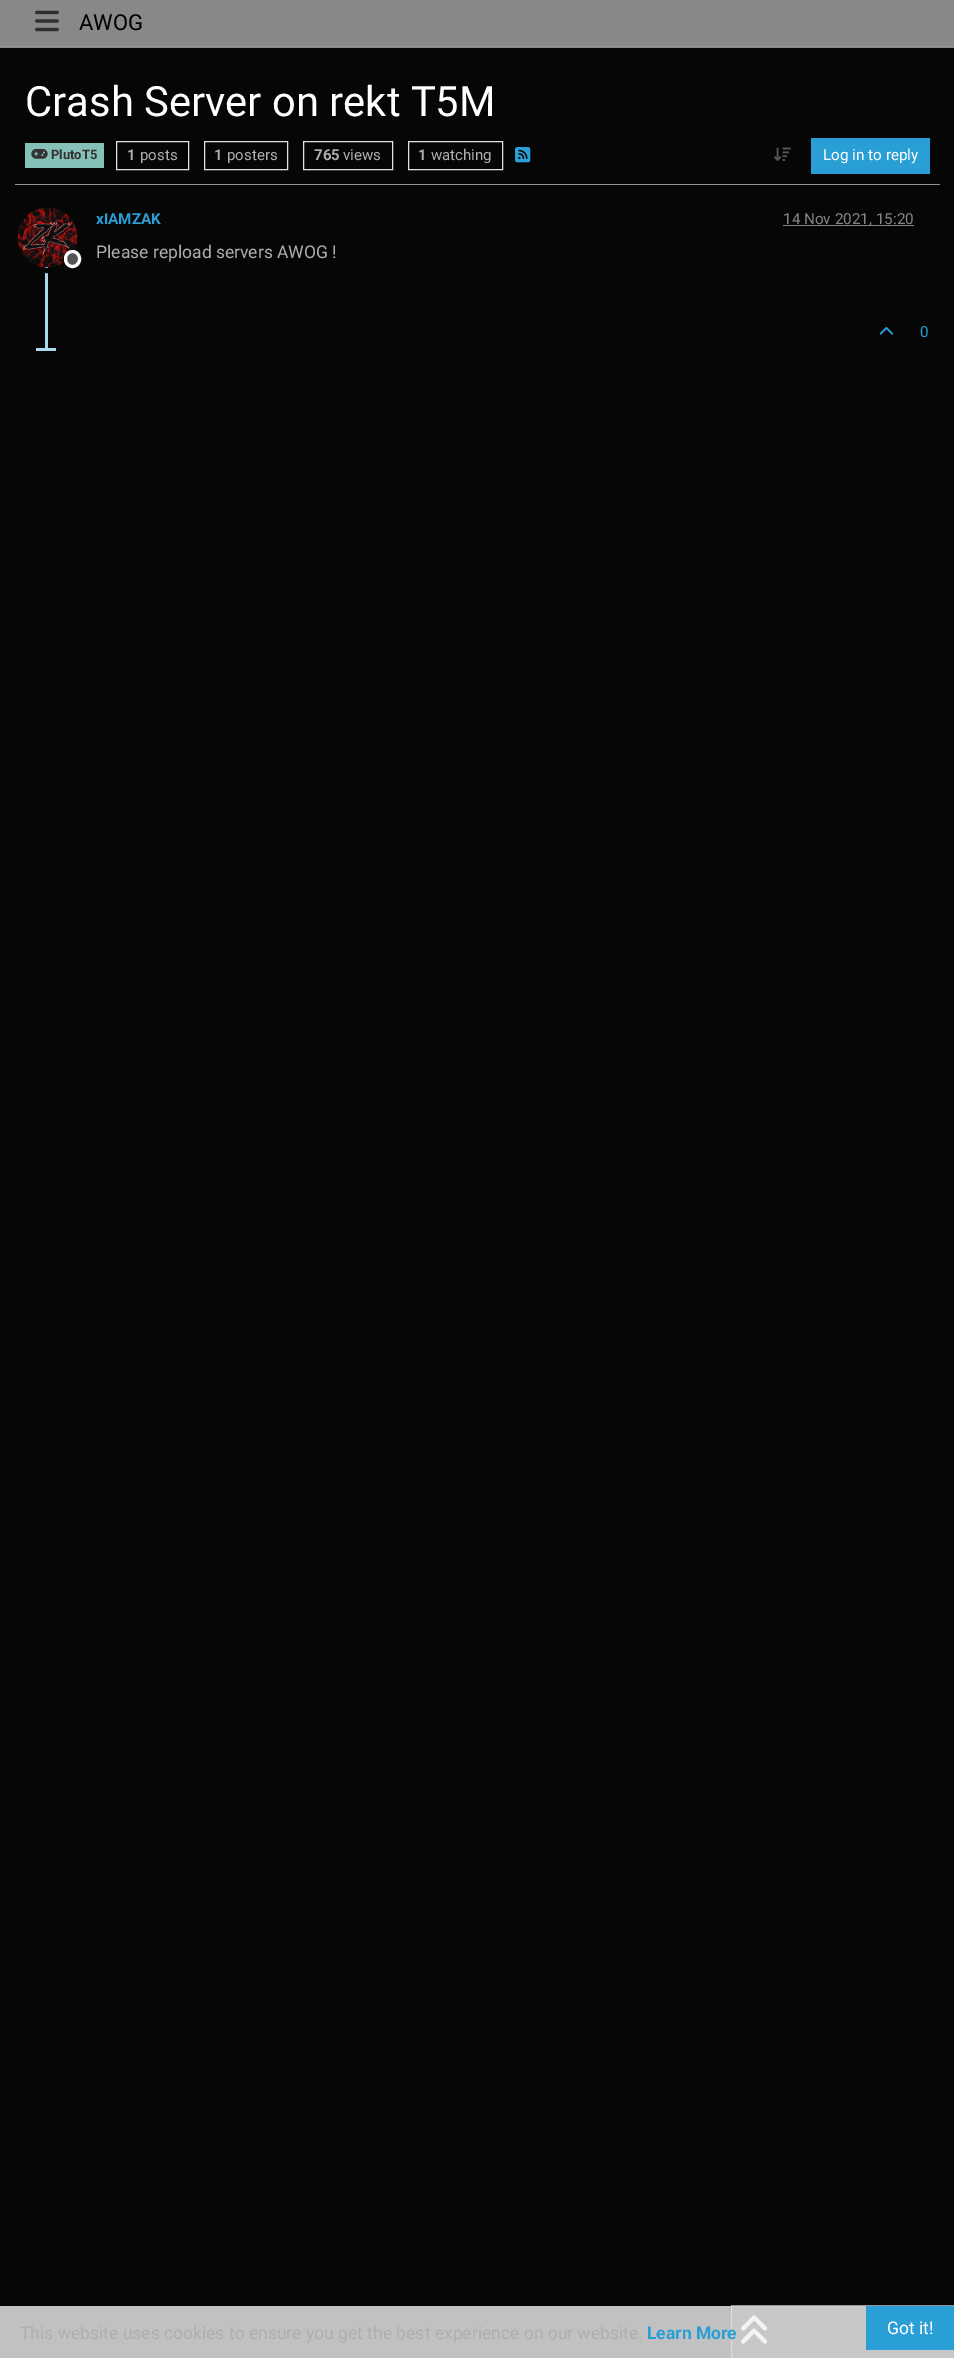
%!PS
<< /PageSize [954 2358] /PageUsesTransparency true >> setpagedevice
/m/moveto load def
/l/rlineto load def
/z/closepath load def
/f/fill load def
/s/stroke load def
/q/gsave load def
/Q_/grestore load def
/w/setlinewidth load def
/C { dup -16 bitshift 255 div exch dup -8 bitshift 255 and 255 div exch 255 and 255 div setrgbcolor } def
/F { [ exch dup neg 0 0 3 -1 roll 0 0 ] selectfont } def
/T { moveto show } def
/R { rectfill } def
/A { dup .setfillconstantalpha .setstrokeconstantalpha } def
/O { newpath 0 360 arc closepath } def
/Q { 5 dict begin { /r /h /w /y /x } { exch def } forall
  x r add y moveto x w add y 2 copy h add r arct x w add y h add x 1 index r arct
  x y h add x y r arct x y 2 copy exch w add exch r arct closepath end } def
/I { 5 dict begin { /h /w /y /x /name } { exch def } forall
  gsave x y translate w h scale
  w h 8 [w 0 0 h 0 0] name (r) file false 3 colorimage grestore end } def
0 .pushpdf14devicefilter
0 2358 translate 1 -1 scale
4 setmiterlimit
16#060606 C
0 0 954 2358 R
16#888888 C
0 0 954 48 R
16#929292 C
0 46 954 1 R
(1.rgb) 35 10 24 22 I
/Roboto-Regular 22 F
16#000000 C
(AWOG) 79 30 T
16#929292 C
15 184 925 1 R
/Roboto-Regular 41.75 F
16#FFFFFF C
(Crash Server on rekt T5M) 25 116 T
16#86C1B9 C
25 143 79 25 R
(2.rgb) 31 148 17 11 I
/Roboto-Bold 13 F
16#333333 C
(PlutoT5) 51 159 T
16#DEE2E6 C
116.5 141.5 72 28 rectstroke
/Roboto-Bold 15 F
16#ADAFAE C
(1) 127 160 T
/Roboto-Regular 15 F
(posts) 140 160 T
16#DEE2E6 C
204.5 141.5 83 28 rectstroke
/Roboto-Bold 15 F
16#ADAFAE C
(1) 214 160 T
/Roboto-Regular 15 F
(posters) 227 160 T
16#DEE2E6 C
303.5 141.5 89 28 rectstroke
/Roboto-Bold 15 F
16#ADAFAE C
(765) 314 160 T
/Roboto-Regular 15 F
(views) 343 160 T
16#DEE2E6 C
408.5 141.5 94 28 rectstroke
/Roboto-Bold 15 F
16#ADAFAE C
(1) 418 160 T
/Roboto-Regular 15 F
(watching) 431 160 T
(3.rgb) 515 147 16 16 I
(4.rgb) 774 147 17 14 I
16#2A9FD6 C
811 138 119 36 R
/Roboto-Regular 15.25 F
16#FFFFFF C
(Log in to reply) 823 160 T
16#AAD9EF C
45 267 3 83 R
16#060606 C
5 w
48 238 32.5 O s
(5.rgb) 17 207 61 61 I
16#555555 C
65.5 251.5 14 15 7 Q q f Q_
16#FFFFFF C
3 w
s
/Roboto-Bold 15.25 F
16#2A9FD6 C
(xIAMZAK) 96 224 T
16#838584 C
783 225 131 1 R
/Roboto-Regular 15.25 F
(14 Nov 2021, 15:20) 783 224 T
/Roboto-Regular 17.5 F
16#ADAFAE C
(Please repload servers AWOG !) 96 258 T
(6.rgb) 879 327 15 8 I
/Roboto-Regular 15.25 F
16#2A9FD6 C
(0) 920 337 T
16#AAD9EF C
36 348 20 3 R
16#222222 C
731.5 2305.5 m 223 0 l 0 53 l -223 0 l z q f Q_
16#929292 C
1 w
s
(7.rgb) 740 2315 28 29 I
0.8 A
16#F0F0F0 C
0 2306 954 52 R
/Roboto-Regular 17.5 F
1 A
16#ADAFAE C
(This website uses cookies to ensure you get the best experience on our website.) 20 2339 T
/Roboto-Bold 17.5 F
16#2A9FD6 C
(Learn More) 647 2339 T
866 2306 88 44 R
/Roboto-Regular 17.5 F
16#FFFFFF C
(Got it!) 887 2334 T
.poppdf14devicefilter showpage
